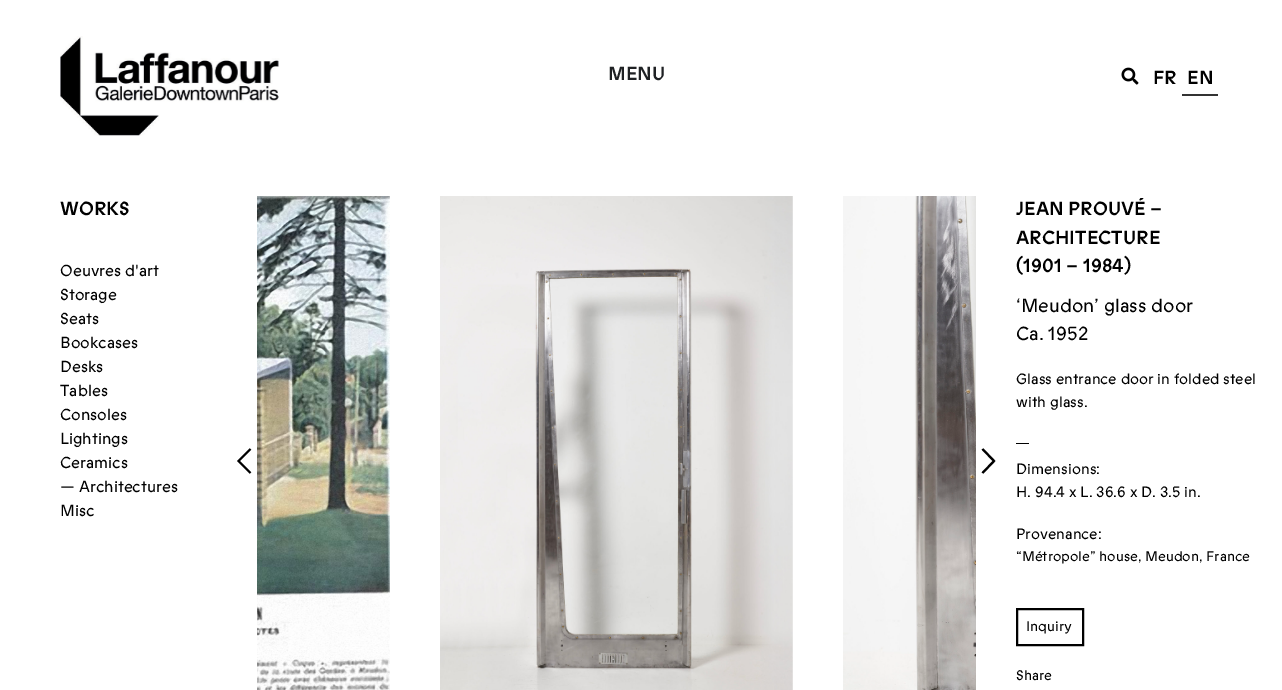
%!PS
<< /PageSize [1282 690] >> setpagedevice
/m/moveto load def
/l/rlineto load def
/s/stroke load def
/w/setlinewidth load def
/C { dup -16 bitshift 255 div exch dup -8 bitshift 255 and 255 div exch 255 and 255 div setrgbcolor } def
/F { [ exch dup neg 0 0 3 -1 roll 0 0 ] selectfont } def
/T { moveto show } def
/R { rectfill } def
/I { 5 dict begin { /h /w /y /x /name } { exch def } forall
  gsave x y translate w h scale
  w h 8 [w 0 0 h 0 0] name (r) file false 3 colorimage grestore end } def
0 690 translate 1 -1 scale
4 setmiterlimit
16#FFFFFF C
0 0 1282 690 R
(1.rgb) 60 36 220 100 I
/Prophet-Medium 19 F
16#1F2124 C
(MENU) 608 80 T
(2.rgb) 1121 67 18 18 I
16#000000 C
(FR) 1153 84 T
16#333333 C
1182 94 36 2 R
16#000000 C
(EN) 1187 84 T
(WORKS) 60 215 T
/Prophet-Regular 16 F
(Oeuvres d'art) 60 276 T
(Storage) 60 300 T
(Seats) 60 324 T
(Bookcases) 60 348 T
(Desks) 60 372 T
(Tables) 60 396 T
(Consoles) 60 420 T
(Lightings) 60 444 T
(Ceramics) 60 468 T
(— Architectures) 60 492 T
(Misc) 60 516 T
2.1 w
250.5 473 m -12 -12 l 12 -12 l s
(3.rgb) 257 196 133 494 I
(4.rgb) 440 196 353 494 I
(5.rgb) 843 196 133 494 I
982.5 449 m 11.5 12 l -11.5 12 l s
/Prophet-Medium 19 F
(JEAN PROUVÉ –) 1016 215 T
(ARCHITECTURE) 1016 244 T
(\(1901 – 1984\)) 1016 272 T
/Prophet-Regular 19 F
(‘Meudon’ glass door) 1016 312 T
(Ca. 1952) 1016 340 T
/Prophet-Regular 15 F
(Glass entrance door in folded steel) 1016 384 T
(with glass.) 1016 407 T
1016 443 13 1 R
(Dimensions:) 1016 474 T
(H. 94.4 x L. 36.6 x D. 3.5 in.) 1016 497 T
(Provenance:) 1016 539 T
/Prophet-Regular 14 F
(“Métropole” house, Meudon, France) 1016 561 T
2 w
1017 609 66 36 rectstroke
(Inquiry) 1026 631 T
(Share) 1016 680 T
showpage
